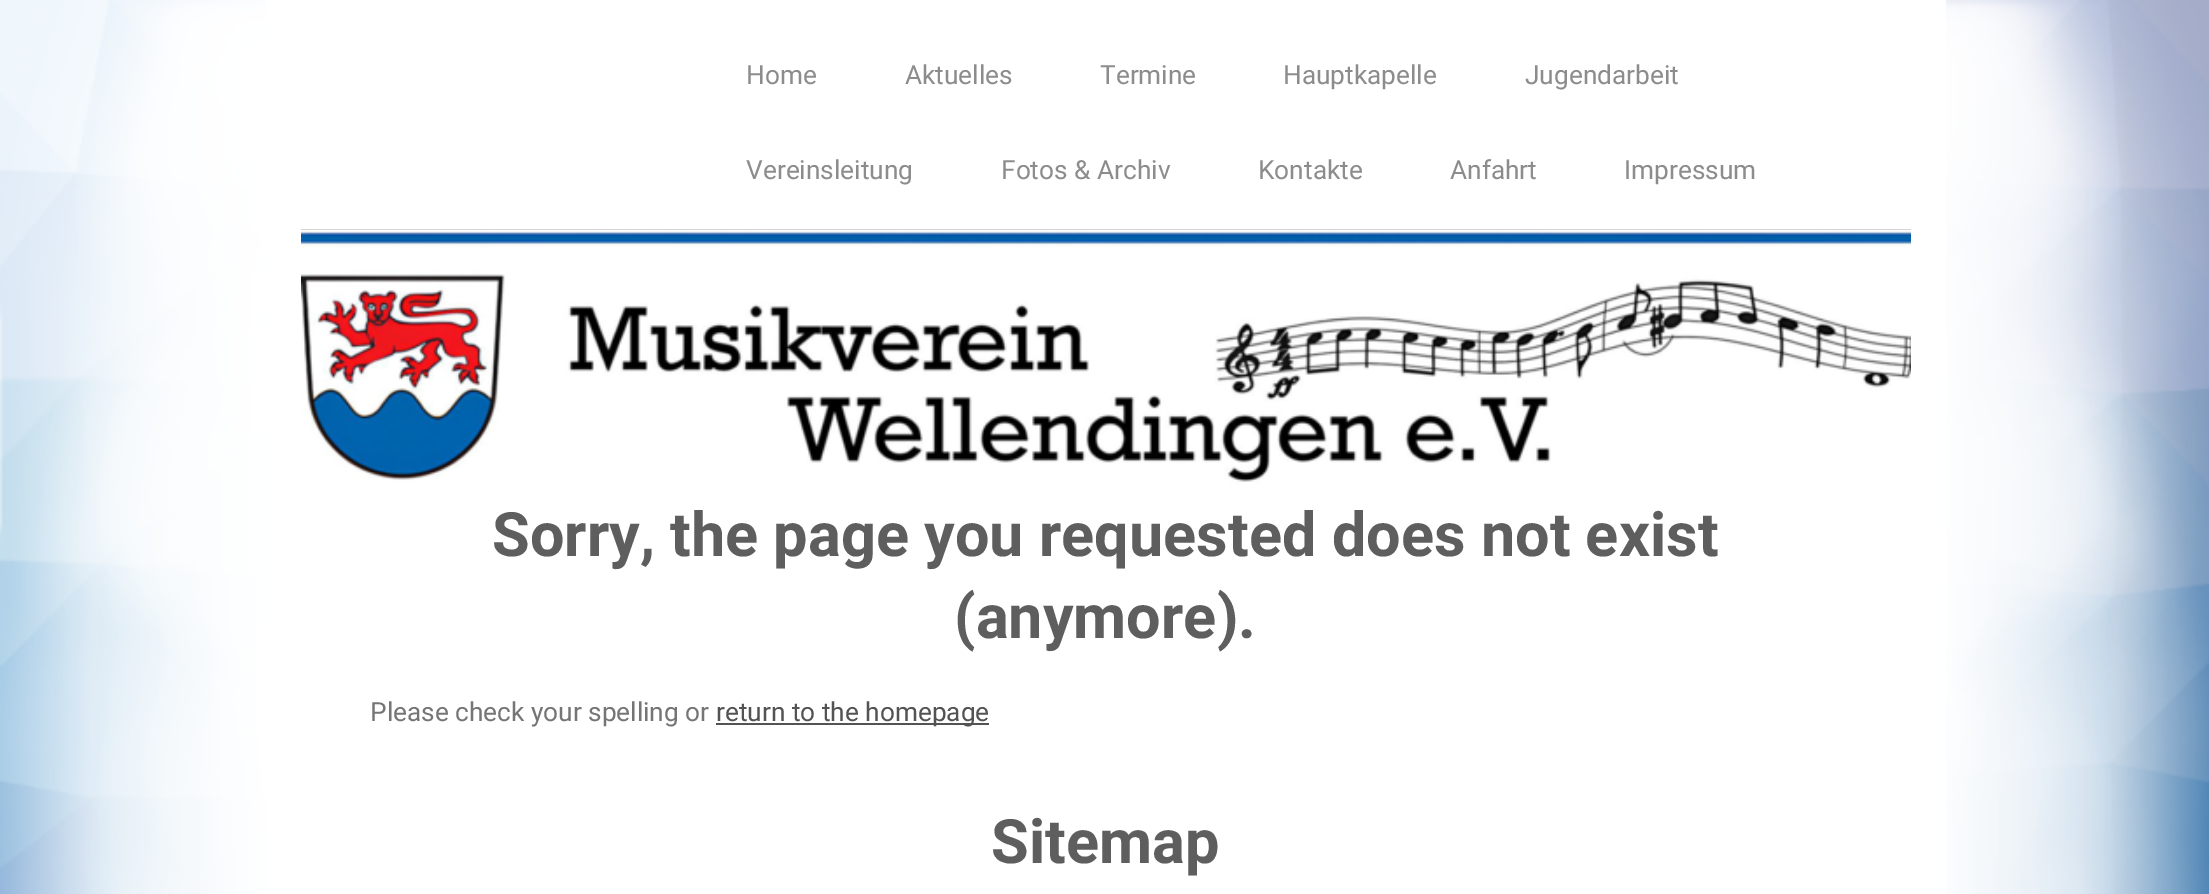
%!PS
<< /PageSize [2209 894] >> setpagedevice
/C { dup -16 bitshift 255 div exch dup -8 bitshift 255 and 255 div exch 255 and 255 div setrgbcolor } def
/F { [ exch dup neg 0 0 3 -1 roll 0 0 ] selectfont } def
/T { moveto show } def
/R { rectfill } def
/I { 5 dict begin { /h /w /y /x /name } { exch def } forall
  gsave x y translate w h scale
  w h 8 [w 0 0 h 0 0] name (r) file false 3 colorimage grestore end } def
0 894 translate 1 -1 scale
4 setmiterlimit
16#FFFFFF C
0 0 2209 894 R
(1.rgb) 0 0 2209 894 I
266 0 1680 894 R
/Roboto-Regular 26.25 F
16#8C8C8C C
(Home) 746 84 T
(Aktuelles) 905 84 T
(Termine) 1100 84 T
(Hauptkapelle) 1283 84 T
(Jugendarbeit) 1525 84 T
(Vereinsleitung) 746 179 T
(Fotos & Archiv) 1001 179 T
(Kontakte) 1258 179 T
(Anfahrt) 1450 179 T
(Impressum) 1624 179 T
16#A0A0A0 C
301 229 1610 1 R
(2.rgb) 301 229 1610 266 I
/Roboto-Bold 61.25 F
16#5E5E5E C
(Sorry, the page you requested does not exist) 492 556 T
(\(anymore\).) 954 638 T
/Roboto-Regular 26.25 F
16#757575 C
(Please check your spelling or) 370 721 T
16#535353 C
716 723 273 2 R
(return to the homepage) 716 721 T
/Roboto-Bold 61.25 F
16#5E5E5E C
(Sitemap) 991 863 T
showpage
